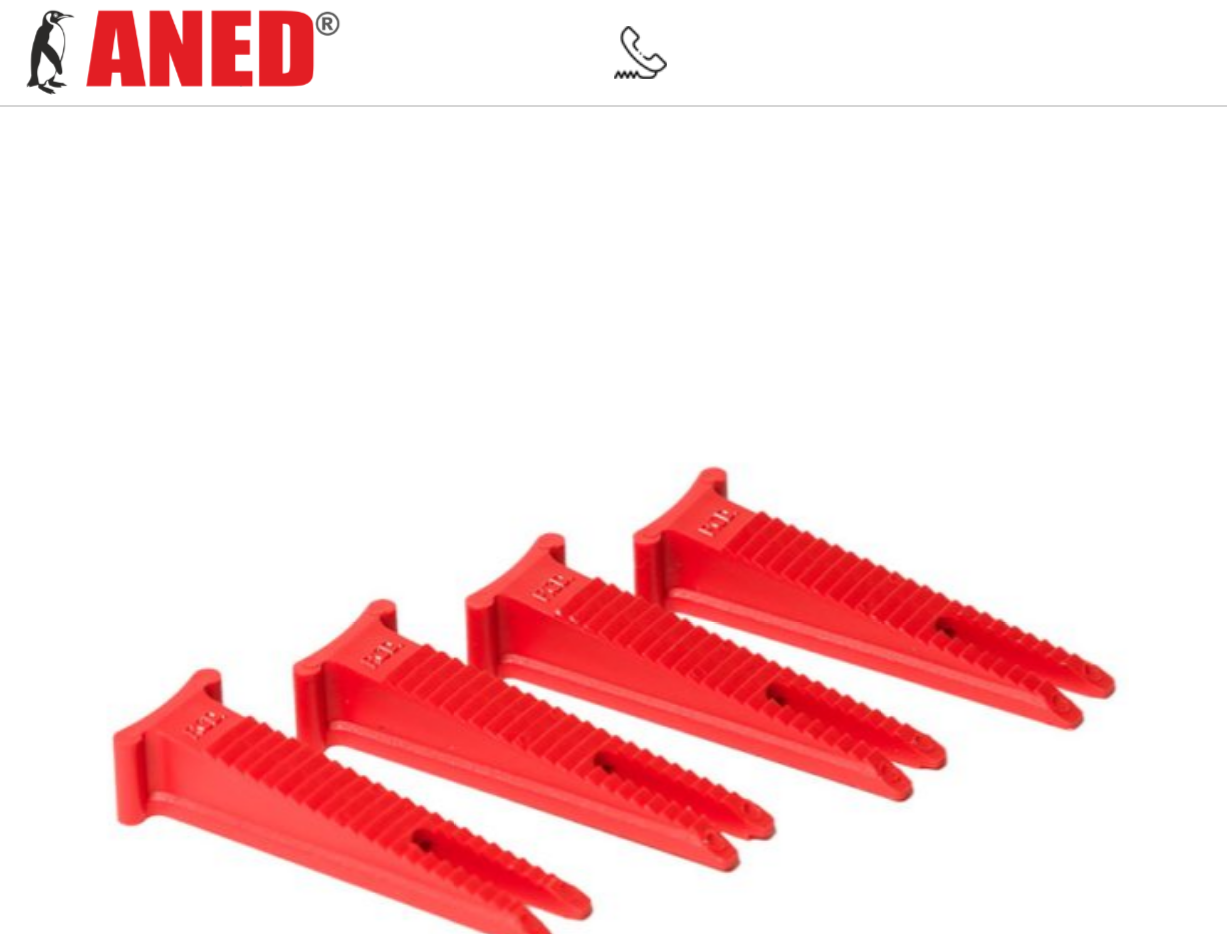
%!PS
<< /PageSize [1227 934] >> setpagedevice
/C { dup -16 bitshift 255 div exch dup -8 bitshift 255 and 255 div exch 255 and 255 div setrgbcolor } def
/R { rectfill } def
/I { 5 dict begin { /h /w /y /x /name } { exch def } forall
  gsave x y translate w h scale
  w h 8 [w 0 0 h 0 0] name (r) file false 3 colorimage grestore end } def
0 934 translate 1 -1 scale
4 setmiterlimit
16#FFFFFF C
0 0 1227 934 R
16#D5D5D5 C
0 105 1227 2 R
(1.rgb) 26 9 315 86 I
(2.rgb) 614 26 53 53 I
(3.rgb) 106 462 1023 472 I
showpage
